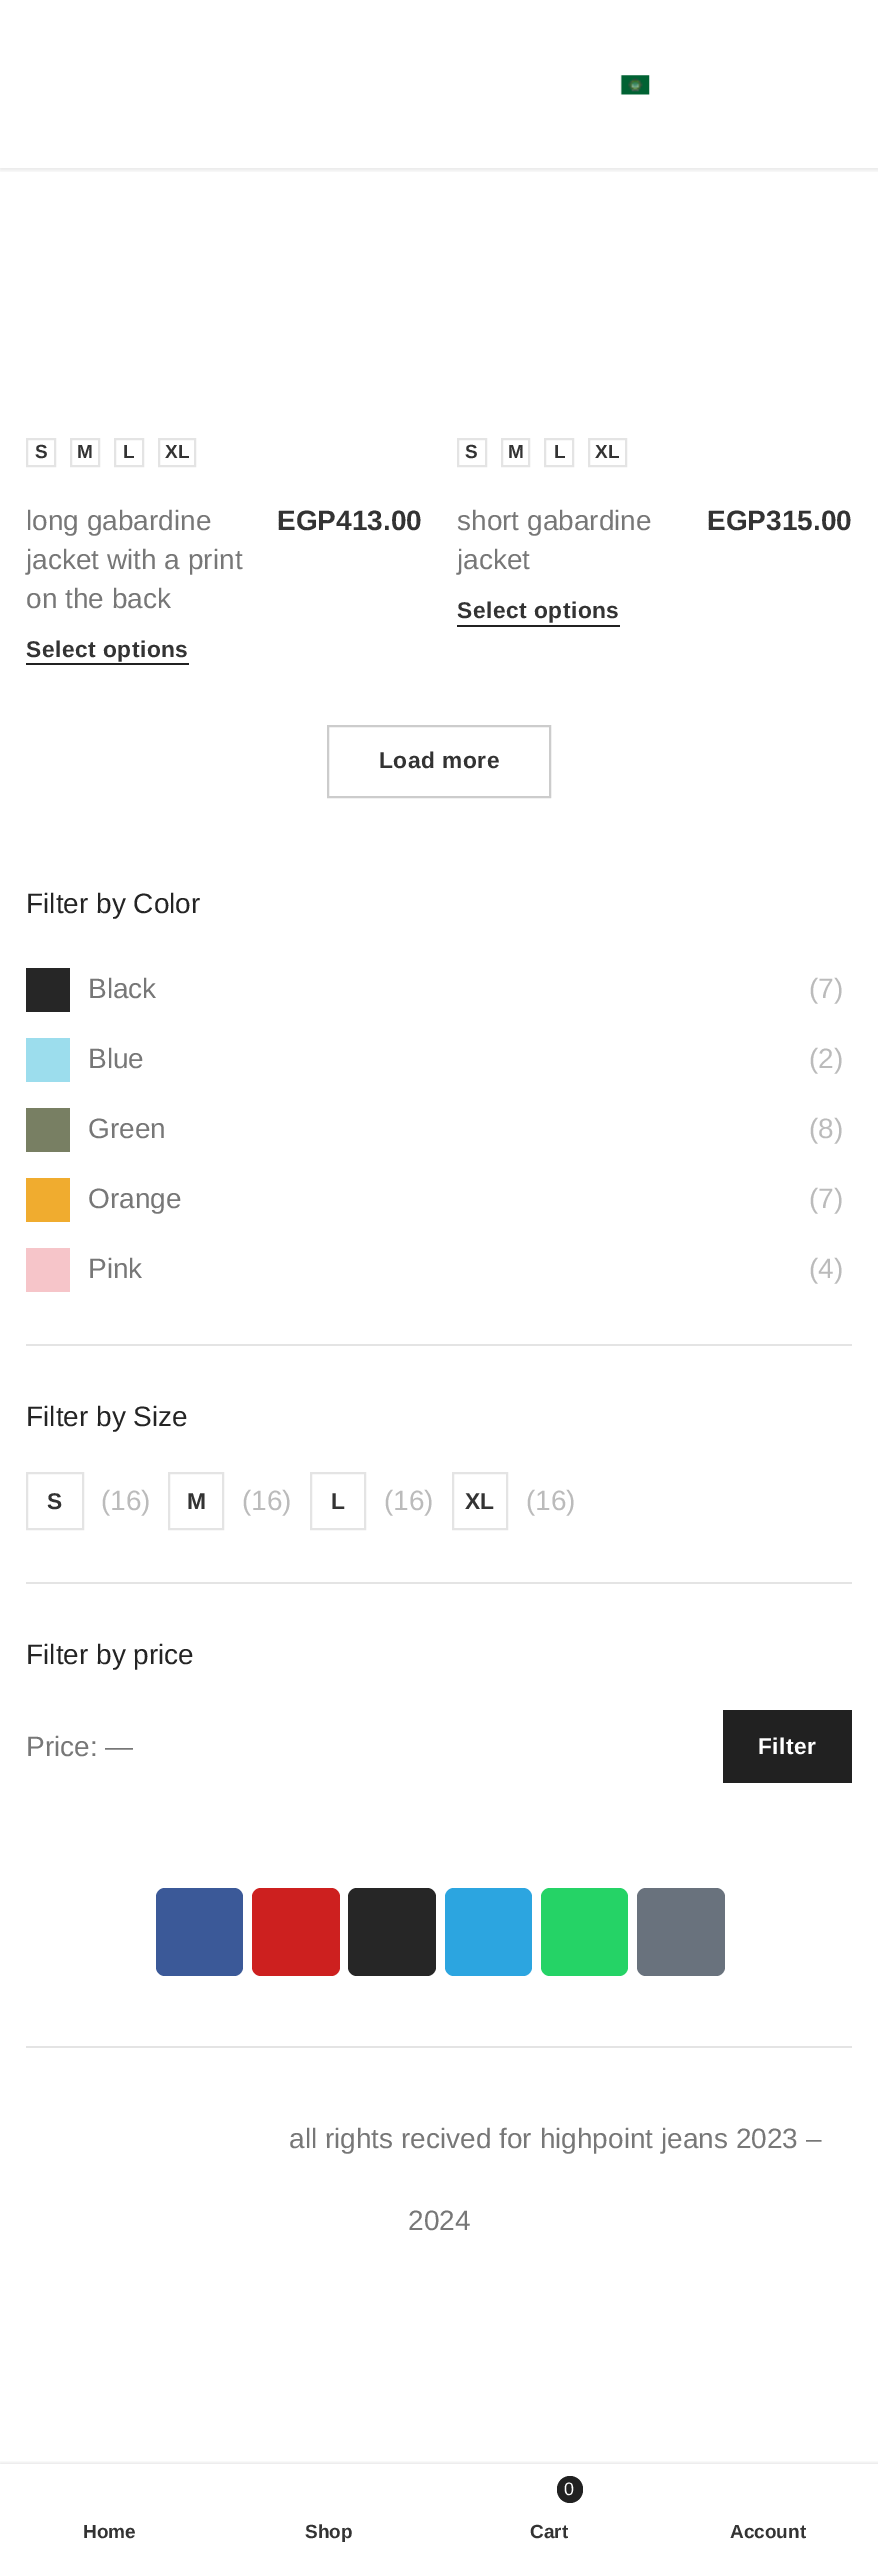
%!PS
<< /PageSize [878 2560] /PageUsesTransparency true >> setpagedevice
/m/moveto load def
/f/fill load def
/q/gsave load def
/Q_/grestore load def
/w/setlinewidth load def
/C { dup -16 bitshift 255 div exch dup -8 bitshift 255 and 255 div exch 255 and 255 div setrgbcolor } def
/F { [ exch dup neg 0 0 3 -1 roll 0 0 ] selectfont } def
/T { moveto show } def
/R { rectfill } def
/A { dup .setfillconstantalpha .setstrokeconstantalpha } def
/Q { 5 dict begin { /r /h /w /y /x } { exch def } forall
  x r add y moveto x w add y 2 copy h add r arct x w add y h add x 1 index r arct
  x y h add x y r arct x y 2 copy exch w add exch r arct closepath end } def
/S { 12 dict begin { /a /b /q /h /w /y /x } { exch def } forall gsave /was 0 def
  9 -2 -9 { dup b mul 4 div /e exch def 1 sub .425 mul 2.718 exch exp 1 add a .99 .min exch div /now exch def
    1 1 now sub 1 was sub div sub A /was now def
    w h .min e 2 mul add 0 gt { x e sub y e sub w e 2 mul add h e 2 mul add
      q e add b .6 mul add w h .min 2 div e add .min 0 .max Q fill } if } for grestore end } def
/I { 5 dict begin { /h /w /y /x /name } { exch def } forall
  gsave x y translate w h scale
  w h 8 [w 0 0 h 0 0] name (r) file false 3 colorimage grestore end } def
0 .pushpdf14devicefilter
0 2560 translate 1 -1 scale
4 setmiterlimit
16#FFFFFF C
0 0 878 2560 R
q
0 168 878 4 rectclip
16#000000 C
0 2 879 168 0 2.5 .1 S
Q_
(1.rgb) 620 75 30 20 I
16#E4E4E4 C
2 w
27 439 28 27 rectstroke
/LiberationSans-Bold 19 F
16#333333 C
(S) 35 458 T
16#E4E4E4 C
71 439 28 27 rectstroke
16#333333 C
(M) 77 458 T
16#E4E4E4 C
115 439 28 27 rectstroke
16#333333 C
(L) 123 458 T
16#E4E4E4 C
159 439 36 27 rectstroke
16#333333 C
(XL) 165 458 T
/LiberationSans-Regular 28 F
16#777777 C
(long gabardine) 26 530 T
(jacket with a print) 26 569 T
(on the back) 26 608 T
/LiberationSans-Bold 28 F
16#333333 C
(EGP413.00) 277 530 T
16#212121 C
26 663 163 2 R
/LiberationSans-Bold 22.75 F
16#333333 C
26 657 m .5 0 (Select options) ashow
16#E4E4E4 C
458 439 28 27 rectstroke
/LiberationSans-Bold 19 F
16#333333 C
(S) 465 458 T
16#E4E4E4 C
502 439 27 27 rectstroke
16#333333 C
(M) 508 458 T
16#E4E4E4 C
545 439 28 27 rectstroke
16#333333 C
(L) 554 458 T
16#E4E4E4 C
589 439 37 27 rectstroke
16#333333 C
(XL) 595 458 T
/LiberationSans-Regular 28 F
16#777777 C
(short gabardine) 457 530 T
(jacket) 457 569 T
/LiberationSans-Bold 28 F
16#333333 C
(EGP315.00) 707 530 T
16#212121 C
457 625 163 2 R
/LiberationSans-Bold 22.75 F
16#333333 C
457 618 m .5 0 (Select options) ashow
16#CCCCCC C
328 726 222 71 rectstroke
16#333333 C
379 768 m .5 0 (Load more) ashow
16#E4E4E4 C
26 1344 826 2 R
/LiberationSans-Regular 28 F
16#242424 C
(Filter by Color) 26 913 T
16#262626 C
26 968 44 44 R
16#777777 C
(Black) 88 998 T
16#BBBBBB C
(\(7\)) 809 998 T
16#9CDDED C
26 1038 44 44 R
16#777777 C
(Blue) 88 1068 T
16#BBBBBB C
(\(2\)) 809 1068 T
16#787F63 C
26 1108 44 44 R
16#777777 C
(Green) 88 1138 T
16#BBBBBB C
(\(8\)) 809 1138 T
16#F0AC2F C
26 1178 44 44 R
16#777777 C
(Orange) 88 1208 T
16#BBBBBB C
(\(7\)) 809 1208 T
16#F6C5C9 C
26 1248 44 44 R
16#777777 C
(Pink) 88 1278 T
16#BBBBBB C
(\(4\)) 809 1278 T
16#E4E4E4 C
26 1582 826 2 R
16#242424 C
(Filter by Size) 26 1426 T
16#E4E4E4 C
27 1473 56 56 rectstroke
/LiberationSans-Bold 22.75 F
16#333333 C
(S) 47 1509 T
/LiberationSans-Regular 28 F
16#BBBBBB C
(\(16\)) 101 1510 T
16#E4E4E4 C
169 1473 54 56 rectstroke
/LiberationSans-Bold 22.75 F
16#333333 C
(M) 187 1509 T
/LiberationSans-Regular 28 F
16#BBBBBB C
(\(16\)) 242 1510 T
16#E4E4E4 C
311 1473 54 56 rectstroke
/LiberationSans-Bold 22.75 F
16#333333 C
(L) 331 1509 T
/LiberationSans-Regular 28 F
16#BBBBBB C
(\(16\)) 384 1510 T
16#E4E4E4 C
453 1473 54 56 rectstroke
/LiberationSans-Bold 22.75 F
16#333333 C
(XL) 465 1509 T
/LiberationSans-Regular 28 F
16#BBBBBB C
(\(16\)) 526 1510 T
16#242424 C
(Filter by price) 26 1664 T
16#777777 C
(Price: —) 26 1756 T
16#212121 C
723 1710 129 73 R
/LiberationSans-Bold 22.75 F
16#FFFFFF C
758 1754 m .5 0 (Filter) ashow
16#3B5998 C
156 1888 87 88 9 Q f
16#CD201F C
252 1888 88 88 9 Q f
16#262626 C
348 1888 88 88 9 Q f
16#2CA5E0 C
445 1888 87 88 9 Q f
16#25D366 C
541 1888 87 88 9 Q f
16#69727D C
637 1888 88 88 9 Q f
16#E4E4E4 C
26 2046 826 2 R
/LiberationSans-Regular 28 F
16#777777 C
(all rights recived for highpoint jeans 2023 –) 289 2148 T
(2024) 408 2230 T
q
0 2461 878 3 rectclip
16#000000 C
0 2464 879 96 0 2.5 .15 S
Q_
/LiberationSans-Bold 19 F
16#333333 C
(Home) 83 2538 T
(Shop) 305 2538 T
16#212121 C
557 2476 26 27 13 Q f
/LiberationSans-Regular 18 F
16#FFFFFF C
(0) 564 2495 T
/LiberationSans-Bold 19 F
16#333333 C
(Cart) 530 2538 T
(Account) 730 2538 T
.poppdf14devicefilter showpage
